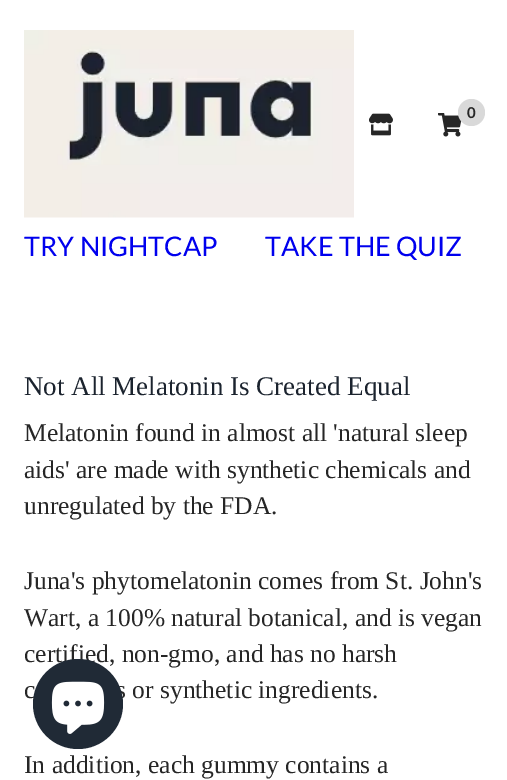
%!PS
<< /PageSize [507 780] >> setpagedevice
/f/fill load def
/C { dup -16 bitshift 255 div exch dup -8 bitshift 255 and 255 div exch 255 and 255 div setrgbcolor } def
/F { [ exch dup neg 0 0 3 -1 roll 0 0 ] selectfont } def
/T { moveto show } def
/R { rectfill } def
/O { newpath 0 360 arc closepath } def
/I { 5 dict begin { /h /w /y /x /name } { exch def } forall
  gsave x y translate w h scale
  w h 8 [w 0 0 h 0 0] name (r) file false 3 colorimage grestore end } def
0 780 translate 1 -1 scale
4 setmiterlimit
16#FFFFFF C
0 0 507 780 R
(1.rgb) 24 30 330 188 I
(2.rgb) 369 113 24 23 I
(3.rgb) 438 113 24 24 I
16#D9D9D9 C
471.5 112.5 13.5 O f
/Lato-Bold 15 F
16#262626 C
(0) 467 118 T
/Lato-Regular 27 F
16#0000EE C
(TRY NIGHTCAP) 24 256 T
(TAKE THE QUIZ) 265 256 T
/LiberationSerif-Regular 27 F
16#1B232E C
(Not All Melatonin Is Created Equal) 24 395 T
/LiberationSerif-Regular 25.5 F
16#262626 C
(Melatonin found in almost all 'natural sleep) 24 441 T
(aids' are made with synthetic chemicals and) 24 478 T
(unregulated by the FDA.) 24 514 T
(Juna's phytomelatonin comes from St. John's) 24 589 T
(Wart, a 100% natural botanical, and is vegan) 24 626 T
(certified, non-gmo, and has no harsh) 24 662 T
(c) 24 698 T
(s or synthetic ingredients.) 116 698 T
(In addition, each gummy contains a) 24 773 T
16#202A36 C
78 704 45 O f
(4.rgb) 51 681 54 53 I
showpage
